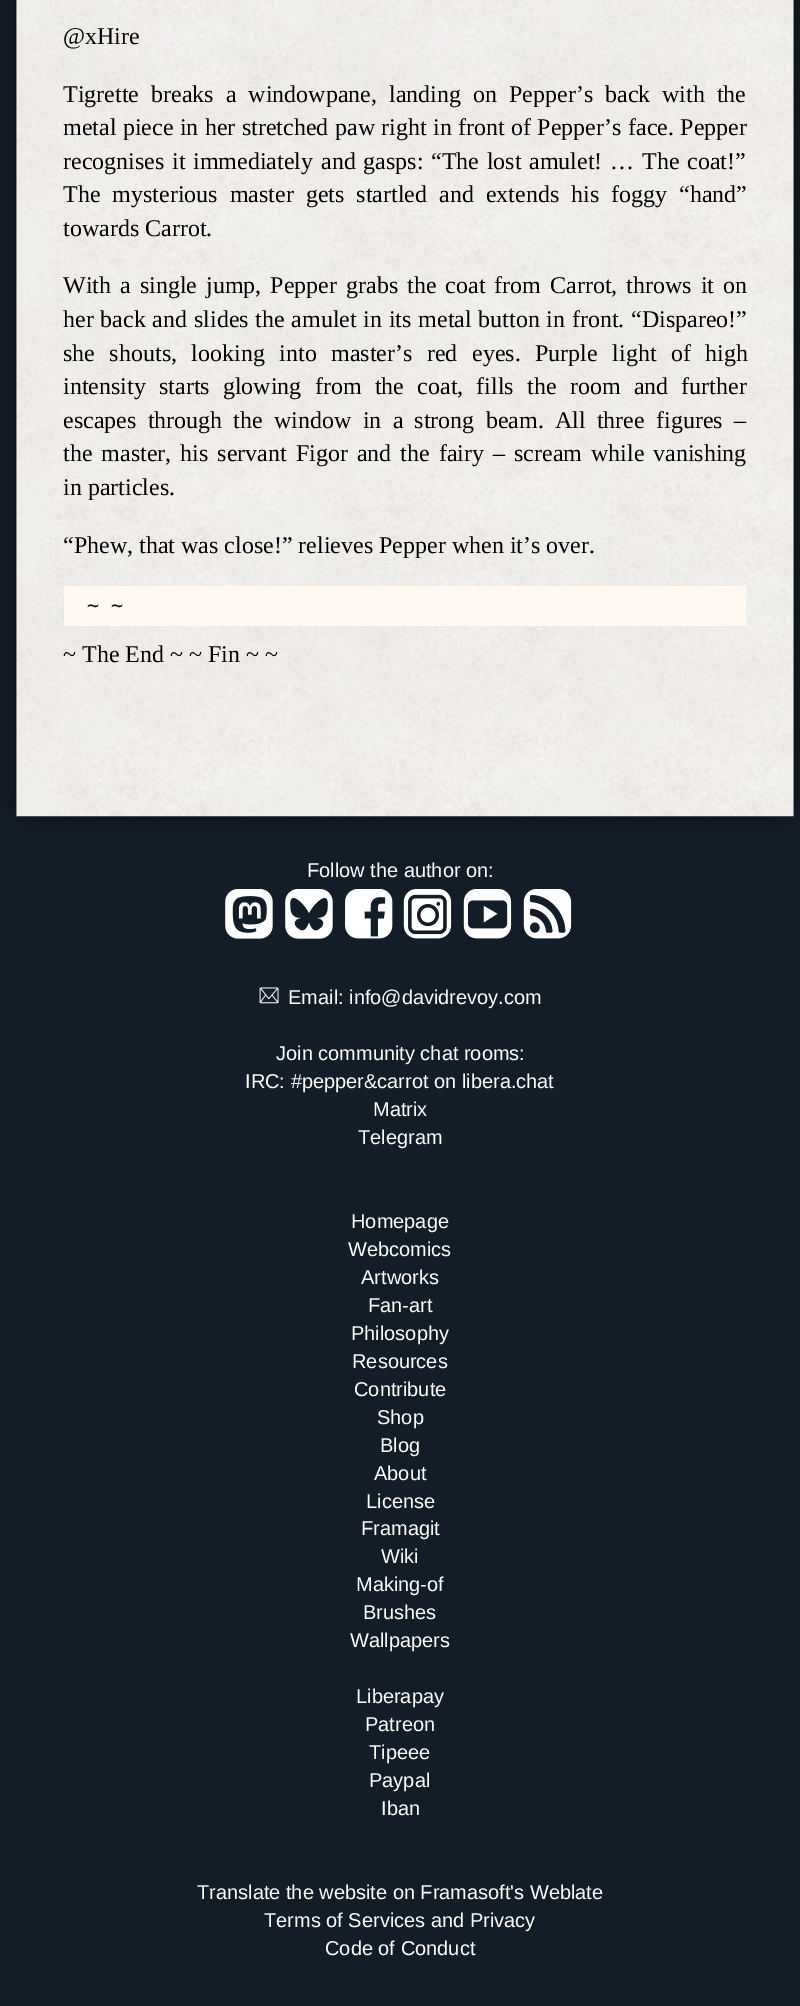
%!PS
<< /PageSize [800 2006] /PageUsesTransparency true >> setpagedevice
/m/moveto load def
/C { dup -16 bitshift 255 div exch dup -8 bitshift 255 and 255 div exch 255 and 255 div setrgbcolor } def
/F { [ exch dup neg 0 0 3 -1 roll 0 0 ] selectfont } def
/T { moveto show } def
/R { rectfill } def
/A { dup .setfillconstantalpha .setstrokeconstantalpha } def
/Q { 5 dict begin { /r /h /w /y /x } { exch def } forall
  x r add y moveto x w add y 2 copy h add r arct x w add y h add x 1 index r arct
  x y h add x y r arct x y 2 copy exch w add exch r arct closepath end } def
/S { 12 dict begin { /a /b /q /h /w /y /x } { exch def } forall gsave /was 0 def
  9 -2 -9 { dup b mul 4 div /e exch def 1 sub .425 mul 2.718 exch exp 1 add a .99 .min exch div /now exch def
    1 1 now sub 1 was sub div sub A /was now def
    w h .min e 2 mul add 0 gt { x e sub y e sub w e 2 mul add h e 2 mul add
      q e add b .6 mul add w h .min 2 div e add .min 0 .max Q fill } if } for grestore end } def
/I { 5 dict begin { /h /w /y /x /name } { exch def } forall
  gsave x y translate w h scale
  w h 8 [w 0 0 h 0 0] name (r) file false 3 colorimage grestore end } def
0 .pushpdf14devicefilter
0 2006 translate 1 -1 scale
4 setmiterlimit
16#121D27 C
0 0 800 2006 R
16#000000 C
16 -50 778 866 20 10 .6 S
(1.rgb) 16 0 778 817 I
/LiberationSerif-Regular 24 F
(@xHire) 63 44 T
63 102 m 6 0 32 (Tigrette breaks a windowpane, landing on Pepper’s back with the) widthshow
63 135 m .4 0 32 (metal piece in her stretched paw right in front of Pepper’s face. Pepper) widthshow
63 169 m 1.75 0 32 (recognises it immediately and gasps: “The lost amulet! … The coat!”) widthshow
63 202 m 6 0 32 (The mysterious master gets startled and extends his foggy “hand”) widthshow
(towards Carrot.) 63 236 T
63 293 m 3 0 32 (With a single jump, Pepper grabs the coat from Carrot, throws it on) widthshow
63 327 m .75 0 32 (her back and slides the amulet in its metal button in front. “Dispareo!”) widthshow
63 361 m 8.5 0 32 (she shouts, looking into master’s red eyes. Purple light of high) widthshow
63 394 m 7.25 0 32 (intensity starts glowing from the coat, fills the room and further) widthshow
63 428 m 5.25 0 32 (escapes through the window in a strong beam. All three figures –) widthshow
63 461 m 3 0 32 (the master, his servant Figor and the fairy – scream while vanishing) widthshow
(in particles.) 63 495 T
(“Phew, that was close!” relieves Pepper when it’s over.) 63 553 T
16#FFF9F2 C
64 586 682 40 R
/DejaVuSansMono-Regular 20 F
16#111111 C
(~ ~) 87 612 T
/LiberationSerif-Regular 24 F
16#000000 C
(~ The End ~ ~ Fin ~ ~) 63 662 T
/LiberationSans-Regular 20 F
16#FFFFFF C
(Follow the author on:) 307 877 T
(2.rgb) 225 889 48 50 I
(3.rgb) 285 889 48 50 I
(4.rgb) 345 889 48 50 I
(5.rgb) 403 889 49 50 I
(6.rgb) 463 889 49 50 I
(7.rgb) 523 889 49 50 I
(8.rgb) 259 987 20 17 I
(Email: info@davidrevoy.com) 288 1004 T
(Join community chat rooms:) 276 1060 T
(IRC: #pepper&carrot on libera.chat) 245 1088 T
(Matrix) 373 1116 T
(Telegram) 358 1144 T
(Homepage) 351 1228 T
(Webcomics) 348 1256 T
(Artworks) 361 1284 T
(Fan-art) 368 1312 T
(Philosophy) 351 1340 T
(Resources) 352 1368 T
(Contribute) 354 1396 T
(Shop) 377 1424 T
(Blog) 380 1452 T
(About) 374 1480 T
(License) 366 1508 T
(Framagit) 361 1535 T
(Wiki) 381 1563 T
(Making-of) 356 1591 T
(Brushes) 363 1619 T
(Wallpapers) 350 1647 T
(Liberapay) 356 1703 T
(Patreon) 365 1731 T
(Tipeee) 369 1759 T
(Paypal) 369 1787 T
(Iban) 381 1815 T
(Translate the website on Framasoft's Weblate) 197 1899 T
(Terms of Services and Privacy) 264 1927 T
(Code of Conduct) 325 1955 T
.poppdf14devicefilter showpage
